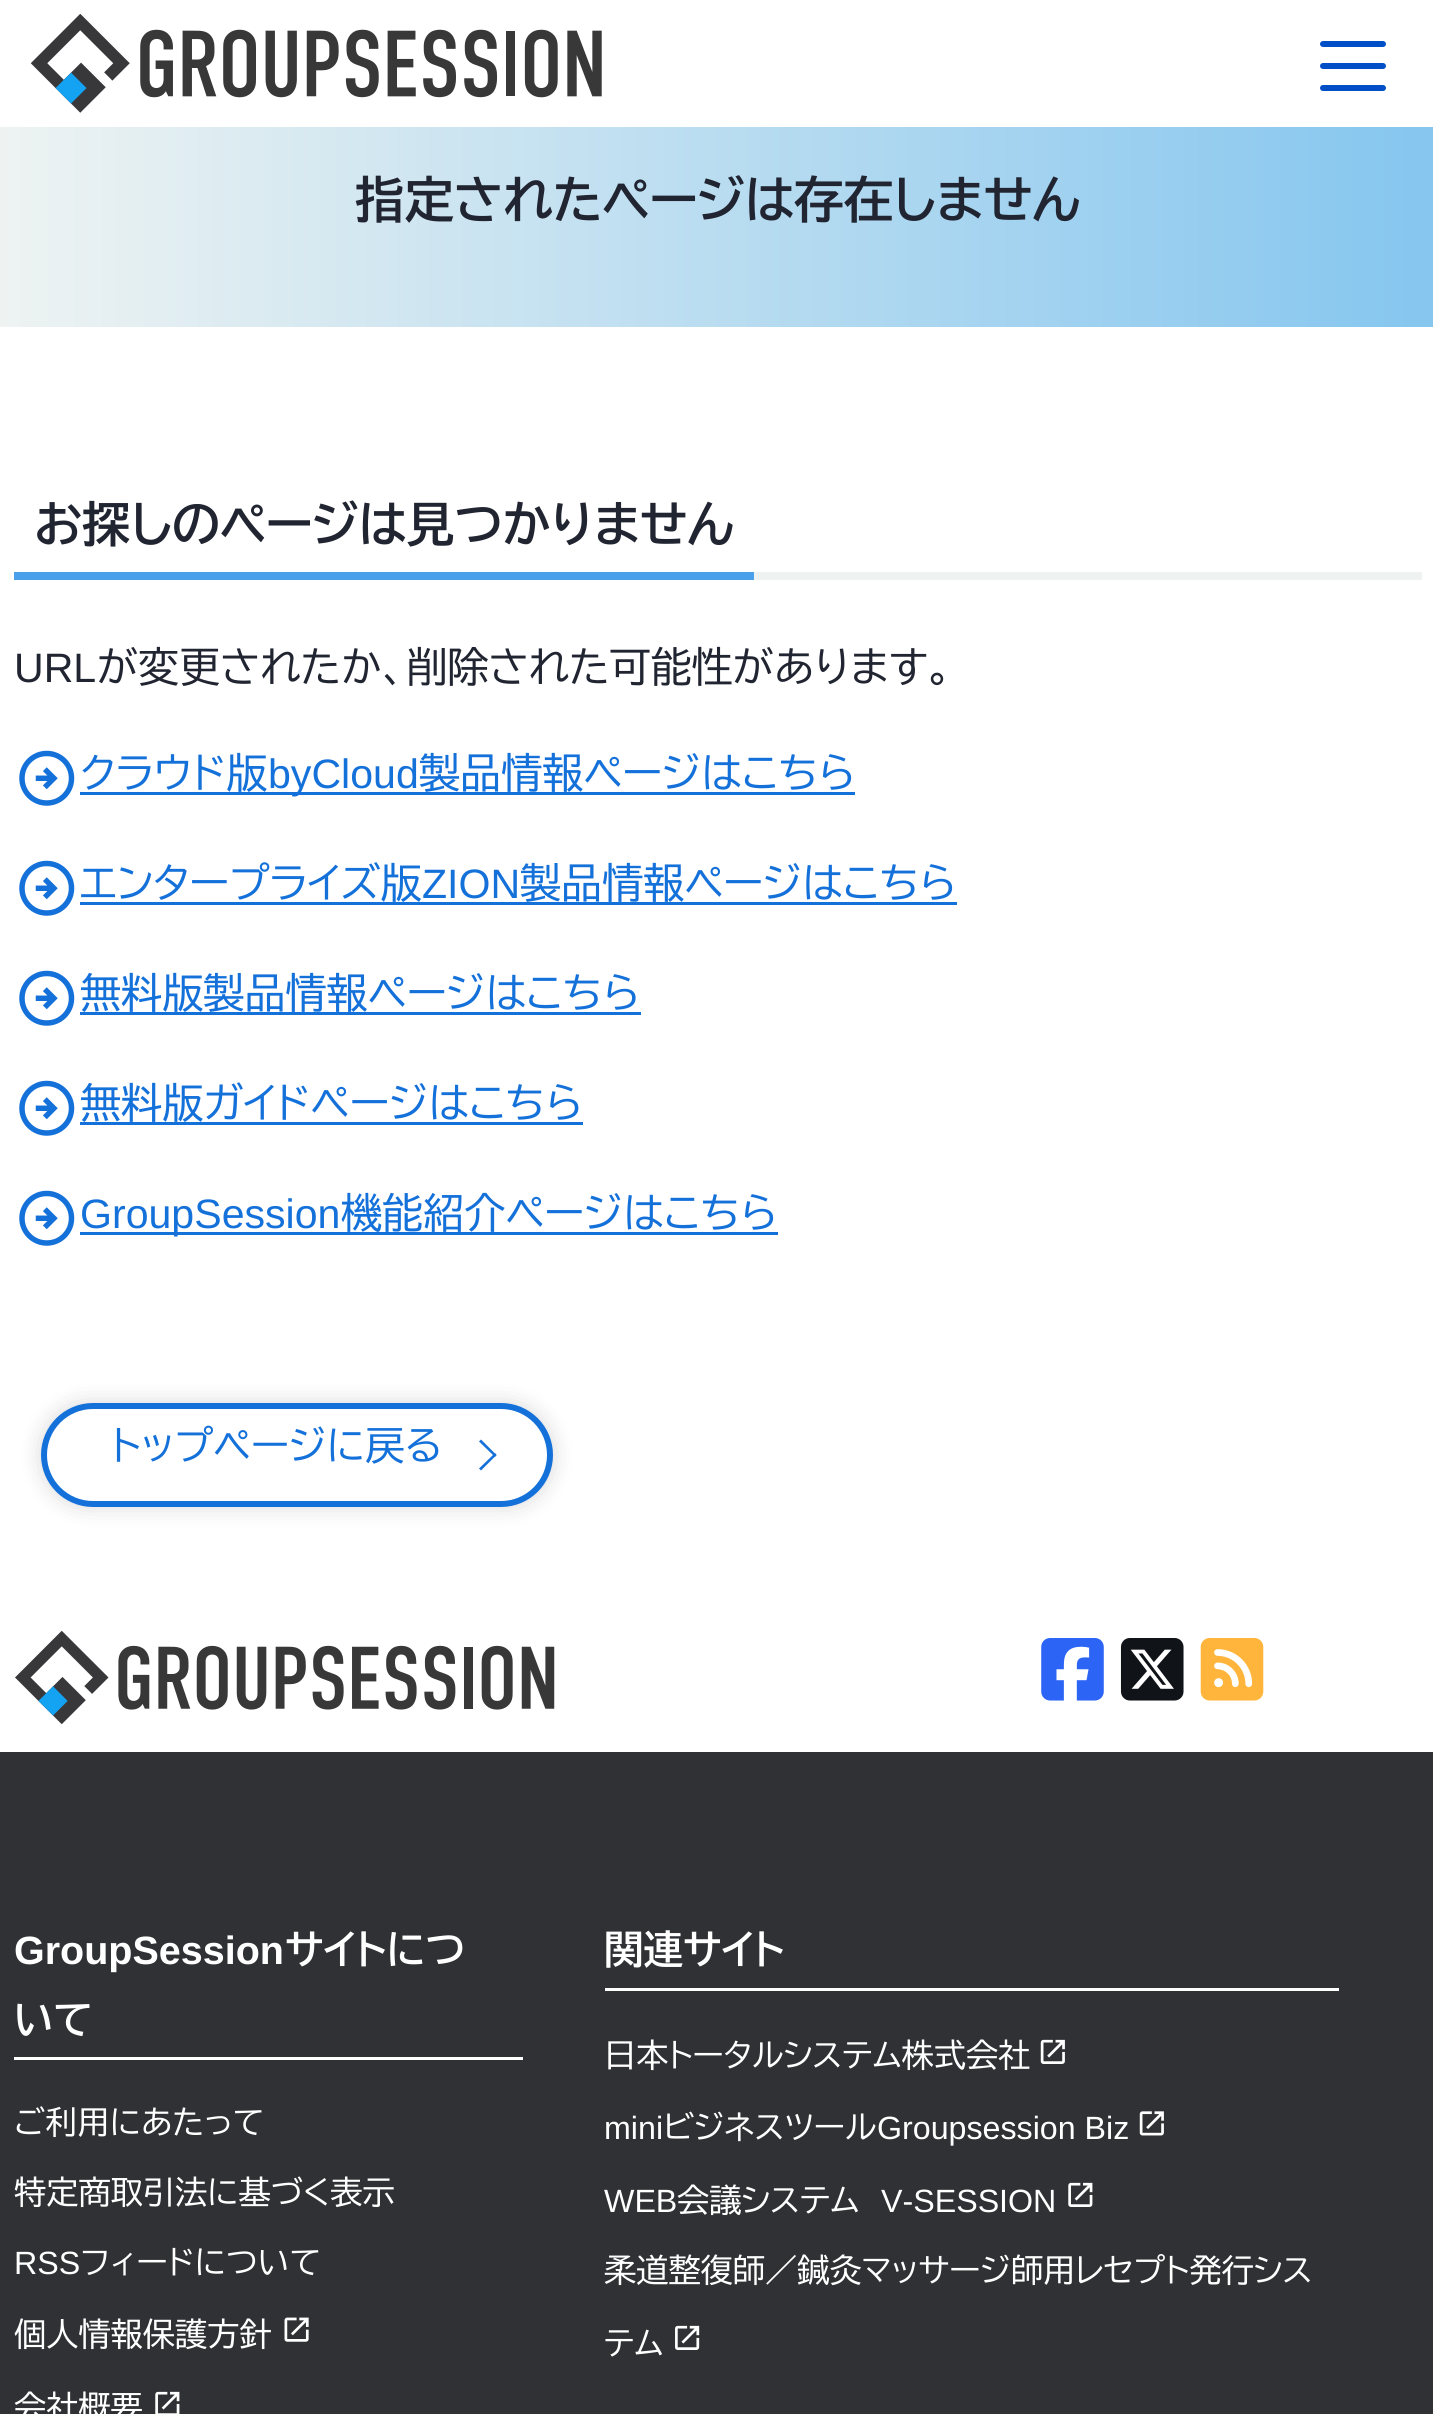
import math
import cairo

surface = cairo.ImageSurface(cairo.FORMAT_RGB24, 1433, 2414)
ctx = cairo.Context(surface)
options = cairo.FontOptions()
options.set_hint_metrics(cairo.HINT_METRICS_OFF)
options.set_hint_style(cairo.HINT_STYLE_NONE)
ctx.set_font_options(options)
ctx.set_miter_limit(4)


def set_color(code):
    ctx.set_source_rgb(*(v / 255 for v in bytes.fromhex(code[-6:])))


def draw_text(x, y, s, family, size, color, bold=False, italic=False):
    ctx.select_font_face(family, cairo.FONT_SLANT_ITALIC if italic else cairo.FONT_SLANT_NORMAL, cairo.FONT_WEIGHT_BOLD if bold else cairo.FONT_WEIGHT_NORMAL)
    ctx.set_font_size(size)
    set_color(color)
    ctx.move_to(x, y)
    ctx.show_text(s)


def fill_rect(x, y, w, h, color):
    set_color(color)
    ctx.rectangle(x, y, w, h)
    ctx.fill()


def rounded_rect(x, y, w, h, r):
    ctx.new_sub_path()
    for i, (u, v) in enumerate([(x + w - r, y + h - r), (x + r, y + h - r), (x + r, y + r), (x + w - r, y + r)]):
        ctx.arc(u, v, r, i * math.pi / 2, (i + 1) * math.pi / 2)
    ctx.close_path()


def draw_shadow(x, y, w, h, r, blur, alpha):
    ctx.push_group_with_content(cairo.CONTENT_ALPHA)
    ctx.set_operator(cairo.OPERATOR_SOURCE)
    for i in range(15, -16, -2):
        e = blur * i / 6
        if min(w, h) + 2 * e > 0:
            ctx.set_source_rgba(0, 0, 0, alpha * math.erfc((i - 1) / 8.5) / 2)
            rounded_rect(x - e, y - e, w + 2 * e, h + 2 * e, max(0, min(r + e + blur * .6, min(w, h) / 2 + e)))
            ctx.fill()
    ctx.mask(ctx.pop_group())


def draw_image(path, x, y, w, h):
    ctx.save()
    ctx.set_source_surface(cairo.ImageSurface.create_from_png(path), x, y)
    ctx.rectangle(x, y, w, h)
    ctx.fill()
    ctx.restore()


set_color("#ffffff")
ctx.paint()
draw_image("assets/img1.png", 30, 14, 572, 99)
set_color("#014fc7")
rounded_rect(1320, 63, 66, 6, 3)
ctx.fill()
rounded_rect(1320, 41, 66, 6, 3)
ctx.fill()
rounded_rect(1320, 85, 66, 6, 3)
ctx.fill()
gradient = cairo.LinearGradient(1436, 227, 0, 227)
gradient.add_color_stop_rgba(0, 0.522, 0.776, 0.937, 1)
gradient.add_color_stop_rgba(1, 0.933, 0.953, 0.949, 1)
ctx.set_source(gradient)
ctx.rectangle(0, 127, 1433, 200)
ctx.fill()
draw_text(355, 218, "指定されたページは存在しません", "BIZ UDPGothic", 49.5, "#212531", bold=True)
fill_rect(754, 572, 668, 8, "#eef3f2")
draw_text(34, 542, "お探しのページは見つかりません", "BIZ UDPGothic", 48.1, "#212531", bold=True)
fill_rect(14, 572, 740, 8, "#4aa0eb")
draw_text(14, 682, "URL", "Liberation Sans", 41.1, "#212531")
draw_text(97, 682, "が変更されたか、削除された可能性があります。", "BIZ UDPGothic", 41.1, "#212531")
draw_image("assets/img2.png", 19, 750, 56, 56)
fill_rect(80, 792, 775, 3, "#1571da")
draw_text(80, 788, "クラウド版", "BIZ UDPGothic", 41.1, "#1571da")
draw_text(268, 788, "byCloud", "Liberation Sans", 41.1, "#1571da")
draw_text(419, 788, "製品情報ページはこちら", "BIZ UDPGothic", 41.1, "#1571da")
draw_image("assets/img2.png", 19, 860, 56, 56)
fill_rect(80, 902, 877, 3, "#1571da")
draw_text(80, 898, "エンタープライズ版", "BIZ UDPGothic", 41.1, "#1571da")
draw_text(422, 898, "ZION", "Liberation Sans", 41.1, "#1571da")
draw_text(520, 898, "製品情報ページはこちら", "BIZ UDPGothic", 41.1, "#1571da")
draw_image("assets/img2.png", 19, 970, 56, 56)
fill_rect(80, 1012, 561, 3, "#1571da")
draw_text(80, 1008, "無料版製品情報ページはこちら", "BIZ UDPGothic", 41.1, "#1571da")
draw_image("assets/img2.png", 19, 1080, 56, 56)
fill_rect(80, 1122, 503, 3, "#1571da")
draw_text(80, 1118, "無料版ガイドページはこちら", "BIZ UDPGothic", 41.1, "#1571da")
draw_image("assets/img2.png", 19, 1190, 56, 56)
fill_rect(80, 1232, 698, 3, "#1571da")
draw_text(80, 1228, "GroupSession", "Liberation Sans", 41.1, "#1571da")
draw_text(341, 1228, "機能紹介ページはこちら", "BIZ UDPGothic", 41.1, "#1571da")
set_color("#000000")
draw_shadow(41, 1403, 512, 104, 52, 11, 0.15)
set_color("#ffffff")
rounded_rect(44, 1406, 506, 98, 49)
ctx.fill_preserve()
set_color("#1571da")
ctx.set_line_width(6)
ctx.stroke()
draw_text(111, 1460, "トップページに戻る", "BIZ UDPGothic", 39.5, "#1571da")
ctx.new_path()
ctx.move_to(481, 1439.5)
ctx.line_to(496.5, 1455)
ctx.line_to(495, 1457)
ctx.line_to(479, 1441.5)
ctx.close_path()
ctx.fill()
ctx.new_path()
ctx.move_to(495, 1453)
ctx.line_to(496.5, 1455)
ctx.line_to(481, 1470.5)
ctx.line_to(479, 1468.5)
ctx.close_path()
ctx.fill()
fill_rect(0, 1752, 1433, 662, "#303134")
draw_image("assets/img3.png", 15, 1631, 540, 93)
draw_image("assets/img4.png", 1041, 1638, 63, 63)
draw_image("assets/img5.png", 1120, 1638, 64, 63)
draw_image("assets/img6.png", 1200, 1638, 64, 63)
fill_rect(14, 2057, 509, 3, "#ffffff")
draw_text(14, 1964, "GroupSession", "Liberation Sans", 39.5, "#ffffff", bold=True)
draw_text(285, 1964, "サイトにつ", "BIZ UDPGothic", 39.5, "#ffffff", bold=True)
draw_text(14, 2034, "いて", "BIZ UDPGothic", 39.5, "#ffffff", bold=True)
draw_text(14, 2134, "ご利用にあたって", "BIZ UDPGothic", 32.2, "#ffffff")
draw_text(14, 2204, "特定商取引法に基づく表示", "BIZ UDPGothic", 32.2, "#ffffff")
draw_text(14, 2274, "RSS", "Liberation Sans", 32.2, "#ffffff")
draw_text(81, 2274, "フィードについて", "BIZ UDPGothic", 32.2, "#ffffff")
draw_text(14, 2346, "個人情報保護方針", "BIZ UDPGothic", 32.2, "#ffffff")
draw_image("assets/img7.png", 284, 2317, 25, 25)
draw_text(14, 2419, "会社概要", "BIZ UDPGothic", 32.2, "#ffffff")
draw_image("assets/img8.png", 155, 2391, 25, 23)
fill_rect(605, 1988, 734, 3, "#ffffff")
draw_text(604, 1964, "関連サイト", "BIZ UDPGothic", 39.5, "#ffffff", bold=True)
draw_text(604, 2067, "日本トータルシステム株式会社", "BIZ UDPGothic", 32.2, "#ffffff")
draw_image("assets/img9.png", 1040, 2039, 25, 25)
draw_text(604, 2139, "mini", "Liberation Sans", 32.2, "#ffffff")
draw_text(663, 2139, "ビジネスツール", "BIZ UDPGothic", 32.2, "#ffffff")
draw_text(877, 2139, "Groupsession Biz", "Liberation Sans", 32.2, "#ffffff")
draw_image("assets/img10.png", 1139, 2111, 25, 25)
draw_text(604, 2212, "WEB", "Liberation Sans", 32.2, "#ffffff")
draw_text(677, 2212, "会議システム", "BIZ UDPGothic", 32.2, "#ffffff")
draw_text(881, 2212, "V-SESSION", "Liberation Sans", 32.2, "#ffffff")
draw_image("assets/img11.png", 1068, 2182, 25, 25)
draw_text(604, 2282, "柔道整復師／鍼灸マッサージ師用レセプト発行シス", "BIZ UDPGothic", 32.2, "#ffffff")
draw_text(604, 2355, "テム", "BIZ UDPGothic", 32.2, "#ffffff")
draw_image("assets/img12.png", 675, 2325, 25, 25)
surface.write_to_png("output.png")
